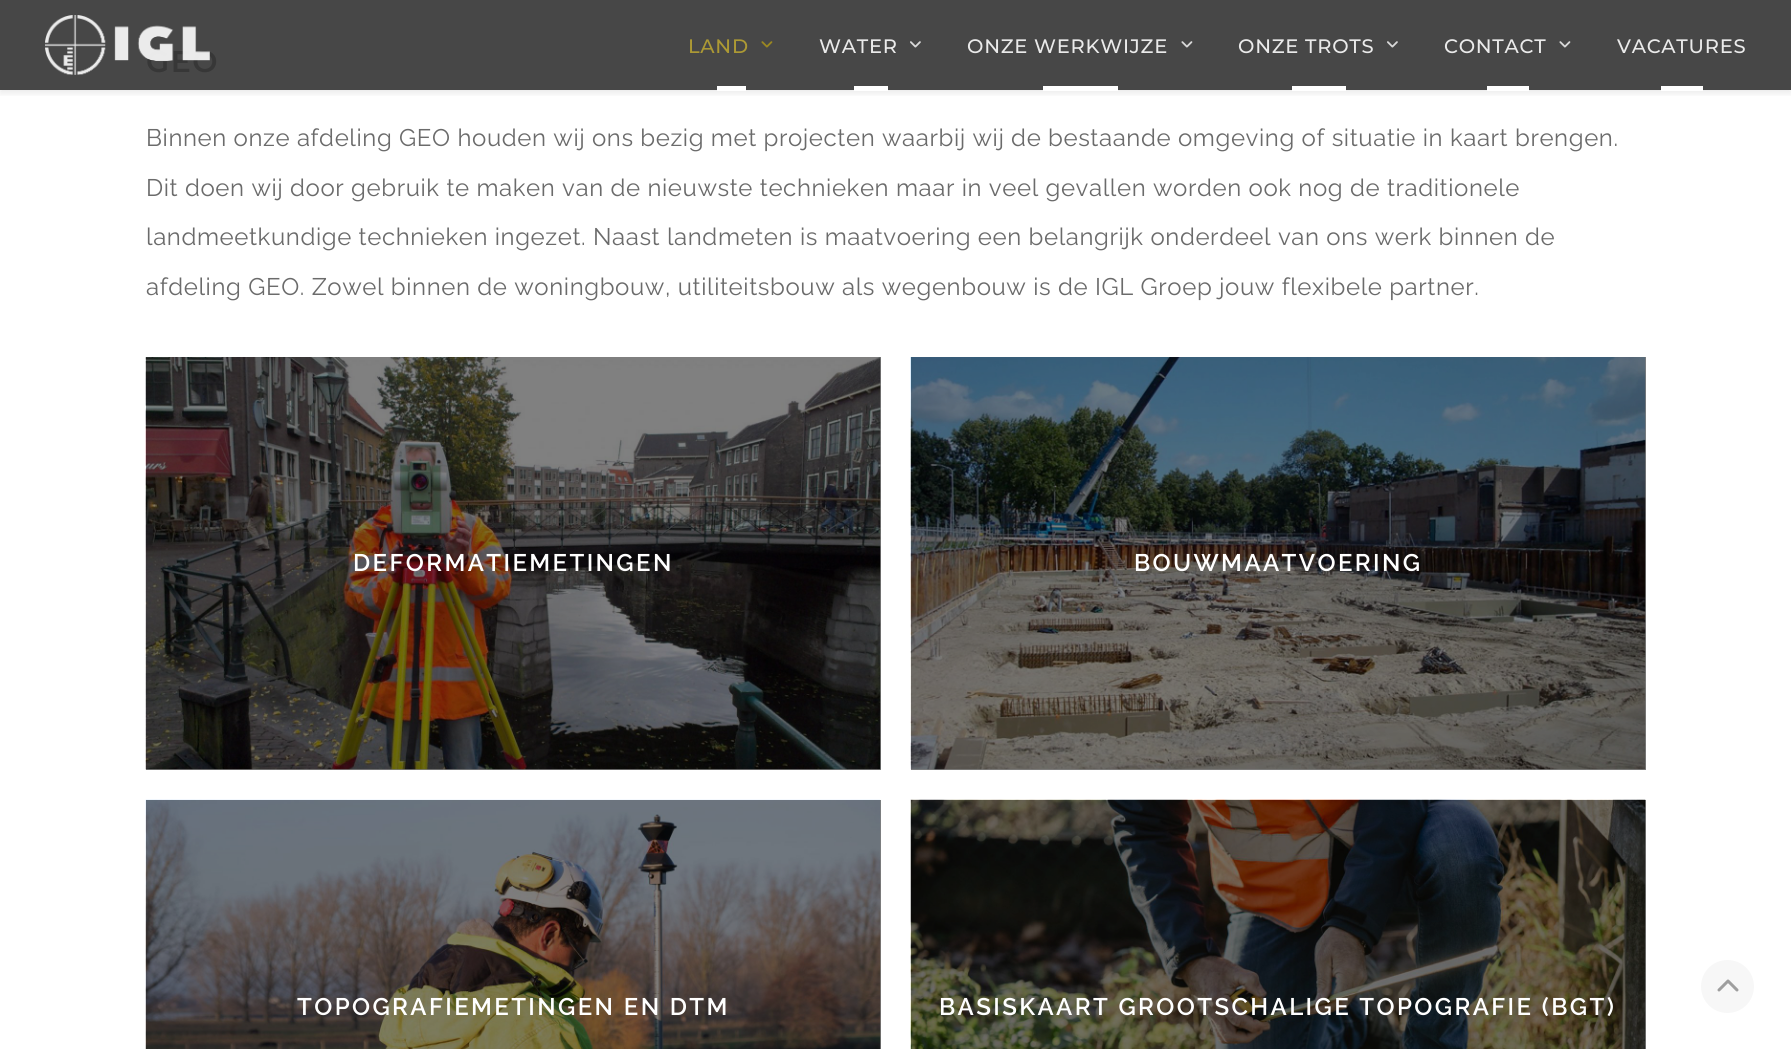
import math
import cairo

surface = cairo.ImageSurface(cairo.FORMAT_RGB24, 1791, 1049)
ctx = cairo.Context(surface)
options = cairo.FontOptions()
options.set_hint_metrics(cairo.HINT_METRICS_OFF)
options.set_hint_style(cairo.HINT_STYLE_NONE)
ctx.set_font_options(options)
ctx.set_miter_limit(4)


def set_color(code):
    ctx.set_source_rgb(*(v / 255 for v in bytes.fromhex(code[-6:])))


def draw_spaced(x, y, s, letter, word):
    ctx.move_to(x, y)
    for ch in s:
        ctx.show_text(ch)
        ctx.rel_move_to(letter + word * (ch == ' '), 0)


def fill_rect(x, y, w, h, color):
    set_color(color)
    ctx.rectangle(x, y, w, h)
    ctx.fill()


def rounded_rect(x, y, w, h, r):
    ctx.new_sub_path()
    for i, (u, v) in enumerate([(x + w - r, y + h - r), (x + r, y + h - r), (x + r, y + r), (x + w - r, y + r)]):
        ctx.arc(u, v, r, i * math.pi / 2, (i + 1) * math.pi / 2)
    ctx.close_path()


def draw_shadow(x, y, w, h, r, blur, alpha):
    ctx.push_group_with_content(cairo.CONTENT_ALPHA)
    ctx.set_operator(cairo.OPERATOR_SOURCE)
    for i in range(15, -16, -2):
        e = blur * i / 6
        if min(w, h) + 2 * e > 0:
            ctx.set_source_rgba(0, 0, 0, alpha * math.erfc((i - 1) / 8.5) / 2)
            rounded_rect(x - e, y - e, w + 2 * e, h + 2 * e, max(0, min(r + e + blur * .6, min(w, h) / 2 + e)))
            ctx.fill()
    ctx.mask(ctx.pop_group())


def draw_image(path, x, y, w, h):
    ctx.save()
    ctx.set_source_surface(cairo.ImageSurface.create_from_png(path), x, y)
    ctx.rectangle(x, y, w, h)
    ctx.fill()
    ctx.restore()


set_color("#ffffff")
ctx.paint()
fill_rect(0, 0, 1791, 90, "#474747")
fill_rect(1645, 800, 1, 249, "#808080")
fill_rect(880, 800, 1, 249, "#808080")
fill_rect(911, 357, 735, 413, "#808080")
fill_rect(146, 357, 735, 413, "#808080")
ctx.save()
ctx.rectangle(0, 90, 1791, 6)
ctx.clip()
set_color("#1a1a1a")
draw_shadow(0, 3, 1791, 90, 0, 4, 0.1)
ctx.restore()
ctx.select_font_face("Montserrat SemiBold")
ctx.set_font_size(30)
set_color("#373737")
draw_spaced(146, 72, "GEO", 1.5, 0)
draw_image("assets/img1.png", 45, 15, 165, 60)
ctx.select_font_face("Montserrat Medium")
ctx.set_font_size(19.5)
set_color("#ac9934")
draw_spaced(688, 53, "LAND", 0.75, 0)
draw_image("assets/img2.png", 761, 41, 12, 7)
fill_rect(717, 86, 29, 5, "#ffffff")
set_color("#eaeaea")
draw_spaced(819, 53, "WATER", 0.75, 0)
draw_image("assets/img3.png", 910, 41, 11, 7)
fill_rect(854, 86, 34, 5, "#ffffff")
set_color("#eaeaea")
draw_spaced(967, 53, "ONZE WERKWIJZE", 0.75, 0)
draw_image("assets/img4.png", 1181, 41, 12, 7)
fill_rect(1043, 86, 75, 5, "#ffffff")
set_color("#eaeaea")
draw_spaced(1238, 53, "ONZE TROTS", 0.75, 0)
draw_image("assets/img3.png", 1387, 41, 11, 7)
fill_rect(1292, 86, 54, 5, "#ffffff")
set_color("#eaeaea")
draw_spaced(1444, 53, "CONTACT", 0.75, 0)
draw_image("assets/img4.png", 1559, 41, 12, 7)
fill_rect(1487, 86, 42, 5, "#ffffff")
set_color("#eaeaea")
draw_spaced(1617, 53, "VACATURES", 0.75, 0)
fill_rect(1661, 86, 42, 5, "#ffffff")
ctx.select_font_face("Raleway")
ctx.set_font_size(24)
set_color("#6b6b6b")
draw_spaced(146, 146, "Binnen onze afdeling GEO houden wij ons bezig met projecten waarbij wij de bestaande omgeving of situatie in kaart brengen.", 0.6, 0)
draw_spaced(146, 196, "Dit doen wij door gebruik te maken van de nieuwste technieken maar in veel gevallen worden ook nog de traditionele", 0.6, 0)
draw_spaced(146, 245, "landmeetkundige technieken ingezet. Naast landmeten is maatvoering een belangrijk onderdeel van ons werk binnen de", 0.6, 0)
draw_spaced(146, 295, "afdeling GEO. Zowel binnen de woningbouw, utiliteitsbouw als wegenbouw is de IGL Groep jouw flexibele partner.", 0.6, 0)
draw_image("assets/img5.png", 145, 357, 736, 413)
ctx.select_font_face("Raleway SemiBold")
set_color("#ffffff")
draw_spaced(353, 571, "DEFORMATIEMETINGEN", 2.4, 0)
draw_image("assets/img6.png", 910, 357, 736, 413)
draw_spaced(1134, 571, "BOUWMAATVOERING", 2.4, 0)
draw_image("assets/img7.png", 145, 799, 736, 250)
draw_spaced(297, 1015, "TOPOGRAFIEMETINGEN EN DTM", 2.4, 0)
draw_image("assets/img8.png", 910, 799, 736, 250)
draw_spaced(939, 1015, "BASISKAART GROOTSCHALIGE TOPOGRAFIE (BGT)", 2.4, 0)
set_color("#f7f7f7")
ctx.new_path()
ctx.arc(1727.5, 986.5, 26.5, 0, 2 * math.pi)
ctx.fill()
draw_image("assets/img9.png", 1717, 979, 22, 13)
surface.write_to_png("output.png")
